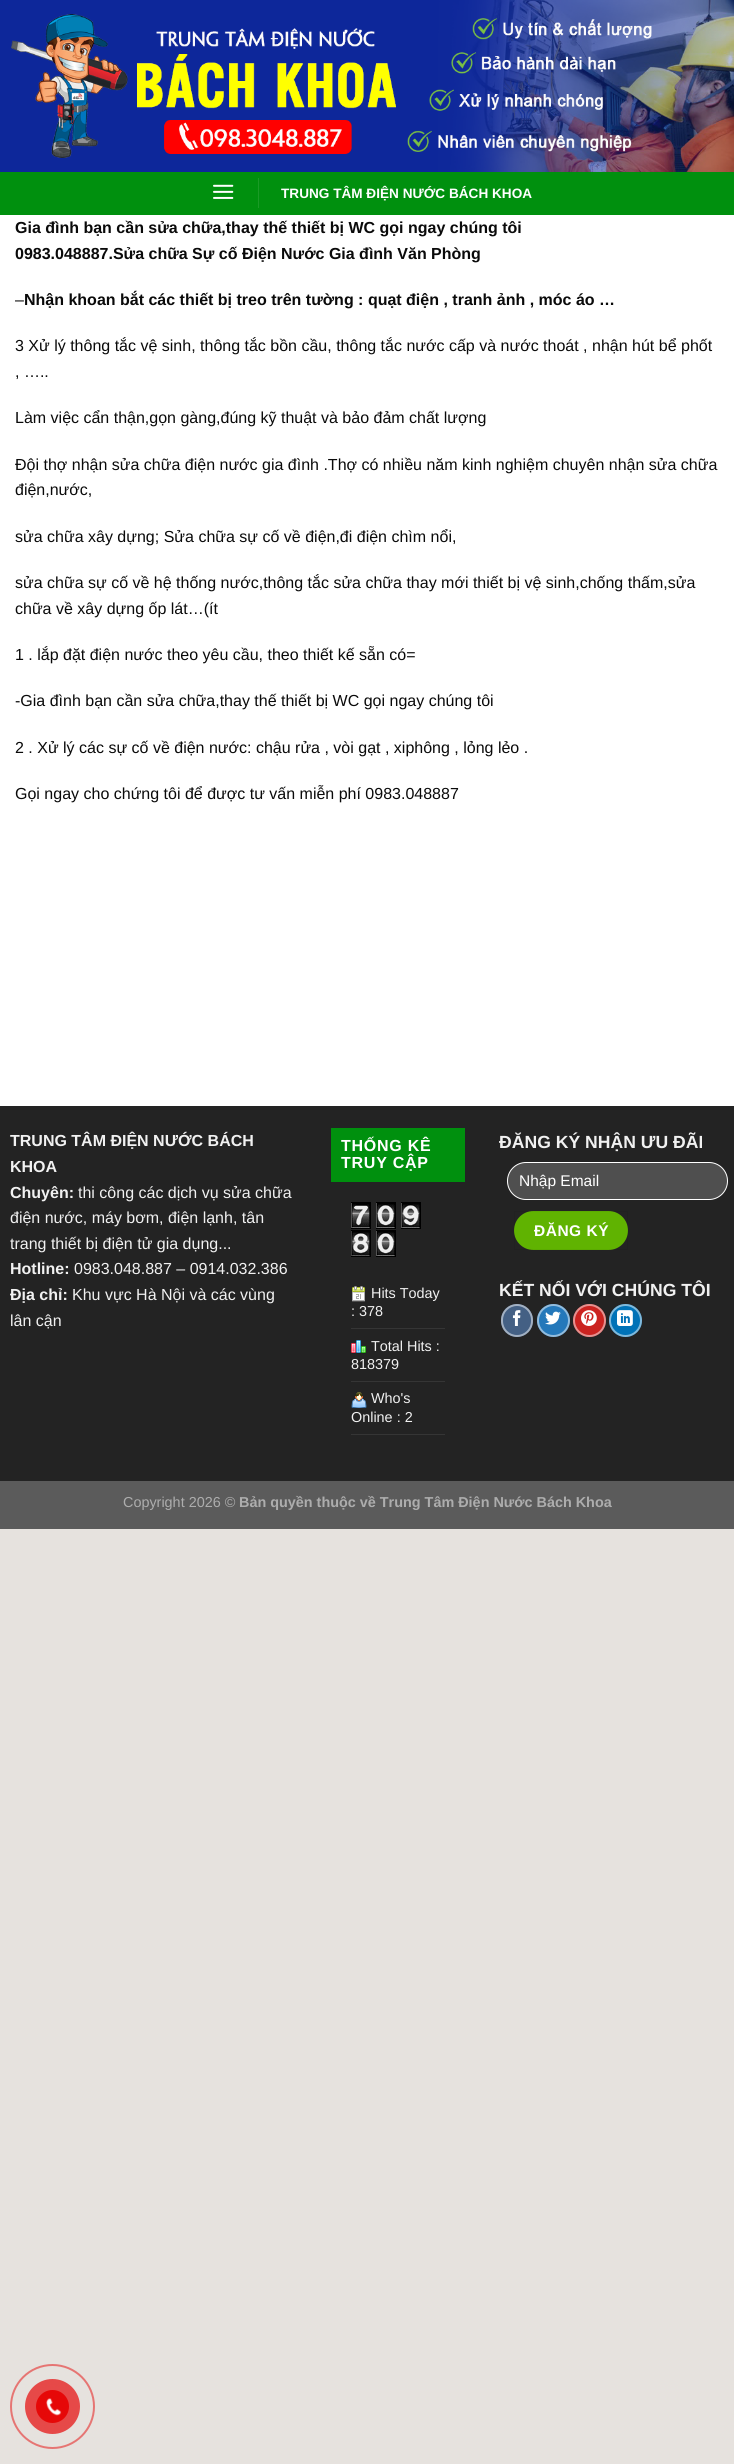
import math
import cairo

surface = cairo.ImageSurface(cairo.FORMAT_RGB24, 734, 2464)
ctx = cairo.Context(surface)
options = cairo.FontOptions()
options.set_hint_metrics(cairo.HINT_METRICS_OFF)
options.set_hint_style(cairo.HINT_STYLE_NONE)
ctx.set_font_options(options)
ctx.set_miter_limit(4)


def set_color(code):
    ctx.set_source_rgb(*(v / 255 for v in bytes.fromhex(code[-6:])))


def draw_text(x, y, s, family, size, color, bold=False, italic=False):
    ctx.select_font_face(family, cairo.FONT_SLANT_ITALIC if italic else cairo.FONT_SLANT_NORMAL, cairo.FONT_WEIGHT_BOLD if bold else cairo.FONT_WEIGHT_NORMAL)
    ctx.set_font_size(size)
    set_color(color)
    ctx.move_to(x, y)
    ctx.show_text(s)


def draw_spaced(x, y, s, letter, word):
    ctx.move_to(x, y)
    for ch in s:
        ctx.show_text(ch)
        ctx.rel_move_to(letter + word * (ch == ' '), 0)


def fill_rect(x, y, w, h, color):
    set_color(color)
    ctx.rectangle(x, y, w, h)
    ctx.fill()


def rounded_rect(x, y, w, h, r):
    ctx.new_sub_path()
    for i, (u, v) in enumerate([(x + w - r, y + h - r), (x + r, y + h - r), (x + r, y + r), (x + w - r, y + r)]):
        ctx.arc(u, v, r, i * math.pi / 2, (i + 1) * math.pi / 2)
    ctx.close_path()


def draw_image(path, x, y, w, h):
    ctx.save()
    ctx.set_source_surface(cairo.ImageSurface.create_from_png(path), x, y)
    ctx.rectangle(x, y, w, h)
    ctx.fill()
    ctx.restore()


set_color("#e6e2de")
ctx.paint()
fill_rect(0, 215, 734, 891, "#ffffff")
draw_image("assets/img1.png", 0, 0, 734, 172)
fill_rect(0, 172, 734, 43, "#00900e")
draw_image("assets/img2.png", 213, 184, 21, 15)
fill_rect(258, 178, 1, 30, "#1a9b26")
draw_text(281, 198, "TRUNG TÂM ĐIỆN NƯỚC BÁCH KHOA", "Liberation Sans", 13.6, "#ffffff", bold=True)
draw_text(15, 233, "Gia đình bạn cần sửa chữa,thay thế thiết bị WC gọi ngay chúng tôi", "Liberation Sans", 16, "#0a0a0a", bold=True)
draw_text(15, 259, "0983.048887.Sửa chữa Sự cố Điện Nước Gia đình Văn Phòng", "Liberation Sans", 16, "#0a0a0a", bold=True)
draw_text(15, 305, "–", "Liberation Sans", 16, "#0a0a0a")
draw_text(24, 305, "Nhận khoan bắt các thiết bị treo trên tường : quạt điện , tranh ảnh , móc áo …", "Liberation Sans", 16, "#0a0a0a", bold=True)
draw_text(15, 351, "3 Xử lý thông tắc vệ sinh, thông tắc bồn cầu, thông tắc nước cấp và nước thoát , nhận hút bể phốt", "Liberation Sans", 16, "#0a0a0a")
draw_text(15, 377, ", …..", "Liberation Sans", 16, "#0a0a0a")
draw_text(15, 423, "Làm việc cẩn thận,gọn gàng,đúng kỹ thuật và bảo đảm chất lượng", "Liberation Sans", 16, "#0a0a0a")
draw_text(15, 470, "Đội thợ nhận sửa chữa điện nước gia đình .Thợ có nhiều năm kinh nghiệm chuyên nhận sửa chữa", "Liberation Sans", 16, "#0a0a0a")
draw_text(15, 495, "điện,nước,", "Liberation Sans", 16, "#0a0a0a")
draw_text(15, 542, "sửa chữa xây dựng; Sửa chữa sự cố về điện,đi điện chìm nổi,", "Liberation Sans", 16, "#0a0a0a")
draw_text(15, 588, "sửa chữa sự cố về hệ thống nước,thông tắc sửa chữa thay mới thiết bị vệ sinh,chống thấm,sửa", "Liberation Sans", 16, "#0a0a0a")
draw_text(15, 614, "chữa về xây dựng ốp lát…(ít", "Liberation Sans", 16, "#0a0a0a")
draw_text(15, 660, "1 . lắp đặt điện nước theo yêu cầu, theo thiết kế sẵn có=", "Liberation Sans", 16, "#0a0a0a")
draw_text(15, 706, "-Gia đình bạn cần sửa chữa,thay thế thiết bị WC gọi ngay chúng tôi", "Liberation Sans", 16, "#0a0a0a")
draw_text(15, 753, "2 . Xử lý các sự cố về điện nước: chậu rửa , vòi gạt , xiphông , lỏng lẻo .", "Liberation Sans", 16, "#0a0a0a")
draw_text(15, 799, "Gọi ngay cho chứng tôi để được tư vấn miễn phí 0983.048887", "Liberation Sans", 16, "#0a0a0a")
fill_rect(0, 1106, 734, 375, "#232323")
draw_text(10, 1146, "TRUNG TÂM ĐIỆN NƯỚC BÁCH", "Liberation Sans", 16, "#f1f1f1", bold=True)
draw_text(10, 1172, "KHOA", "Liberation Sans", 16, "#f1f1f1", bold=True)
draw_text(10, 1198, "Chuyên:", "Liberation Sans", 16, "#f1f1f1", bold=True)
draw_text(78, 1198, "thi công các dịch vụ sửa chữa", "Liberation Sans", 16, "#f1f1f1")
draw_text(10, 1223, "điện nước, máy bơm, điện lạnh, tân", "Liberation Sans", 16, "#f1f1f1")
draw_text(10, 1249, "trang thiết bị điện tử gia dụng...", "Liberation Sans", 16, "#f1f1f1")
draw_text(10, 1274, "Hotline:", "Liberation Sans", 16, "#f1f1f1", bold=True)
draw_text(74, 1274, "0983.048.887 – 0914.032.386", "Liberation Sans", 16, "#f1f1f1")
draw_text(10, 1300, "Địa chỉ:", "Liberation Sans", 16, "#f1f1f1", bold=True)
draw_text(72, 1300, "Khu vực Hà Nội và các vùng", "Liberation Sans", 16, "#f1f1f1")
draw_text(10, 1326, "lân cận", "Liberation Sans", 16, "#f1f1f1")
fill_rect(331, 1128, 134, 54, "#00900e")
ctx.select_font_face("Liberation Sans", cairo.FONT_SLANT_NORMAL, cairo.FONT_WEIGHT_BOLD)
set_color("#ffffff")
draw_spaced(341, 1151, "THỐNG KÊ", 0.75, 0)
draw_spaced(341, 1168, "TRUY CẬP", 0.75, 0)
draw_image("assets/img3.png", 351, 1202, 20, 27)
draw_image("assets/img4.png", 376, 1202, 20, 27)
draw_image("assets/img5.png", 401, 1202, 20, 27)
draw_image("assets/img6.png", 351, 1230, 20, 27)
draw_image("assets/img4.png", 376, 1230, 20, 27)
fill_rect(351, 1328, 94, 1, "#353535")
draw_image("assets/img7.png", 352, 1286, 13, 16)
draw_text(371, 1298, "Hits Today", "Liberation Sans", 14.4, "#f1f1f1")
draw_text(351, 1316, ": 378", "Liberation Sans", 14.4, "#f1f1f1")
fill_rect(351, 1381, 94, 1, "#353535")
draw_image("assets/img8.png", 351, 1340, 15, 14)
draw_text(371, 1351, "Total Hits :", "Liberation Sans", 14.4, "#f1f1f1")
draw_text(351, 1369, "818379", "Liberation Sans", 14.4, "#f1f1f1")
fill_rect(351, 1434, 94, 1, "#353535")
draw_image("assets/img9.png", 351, 1392, 16, 16)
draw_text(371, 1403, "Who's", "Liberation Sans", 14.4, "#f1f1f1")
draw_text(351, 1422, "Online : 2", "Liberation Sans", 14.4, "#f1f1f1")
draw_text(499, 1148, "ĐĂNG KÝ NHẬN ƯU ĐÃI", "Liberation Sans", 17.6, "#f1f1f1", bold=True)
set_color("#4f4f4f")
rounded_rect(507.5, 1162.5, 220, 37, 18.5)
ctx.fill_preserve()
set_color("#ffffff")
ctx.set_line_width(1)
ctx.stroke()
draw_text(519, 1186, "Nhập Email", "Liberation Sans", 15.5, "#ffffff")
set_color("#60b301")
rounded_rect(514, 1211, 114, 39, 19.5)
ctx.fill()
ctx.rectangle(514.5, 1211.5, 113, 38)
ctx.set_source_rgba(0, 0, 0, 0.05)
ctx.stroke()
ctx.select_font_face("Liberation Sans", cairo.FONT_SLANT_NORMAL, cairo.FONT_WEIGHT_BOLD)
set_color("#ffffff")
draw_spaced(534, 1236, "ĐĂNG KÝ", 0.5, 0)
draw_text(499, 1296, "KẾT NỐI VỚI CHÚNG TÔI", "Liberation Sans", 17.6, "#f1f1f1", bold=True)
set_color("#446084")
rounded_rect(501, 1304, 32, 33, 16)
ctx.fill()
rounded_rect(502, 1305, 30, 31, 15)
ctx.set_source_rgba(1, 1, 1, 0.5)
ctx.set_line_width(2)
ctx.stroke()
draw_image("assets/img10.png", 512, 1310, 9, 16)
set_color("#2478ba")
ctx.arc(553.5, 1320.5, 16.5, 0, 2 * math.pi)
ctx.fill()
ctx.arc(553.5, 1320.5, 15.5, 0, 2 * math.pi)
ctx.set_source_rgba(1, 1, 1, 0.5)
ctx.stroke()
draw_image("assets/img11.png", 545, 1311, 16, 14)
set_color("#cb2320")
ctx.arc(589.5, 1320.5, 16.5, 0, 2 * math.pi)
ctx.fill()
ctx.arc(589.5, 1320.5, 15.5, 0, 2 * math.pi)
ctx.set_source_rgba(1, 1, 1, 0.5)
ctx.stroke()
draw_image("assets/img12.png", 581, 1310, 16, 16)
set_color("#0072b7")
ctx.arc(625.5, 1320.5, 16.5, 0, 2 * math.pi)
ctx.fill()
ctx.arc(625.5, 1320.5, 15.5, 0, 2 * math.pi)
ctx.set_source_rgba(1, 1, 1, 0.5)
ctx.stroke()
draw_image("assets/img13.png", 617, 1310, 16, 16)
fill_rect(0, 1481, 734, 48, "#5b5b5b")
draw_text(123, 1507, "Copyright 2026 ©", "Liberation Sans", 14.4, "#adadad")
draw_text(239, 1507, "Bản quyền thuộc về Trung Tâm Điện Nước Bách Khoa", "Liberation Sans", 14.4, "#adadad", bold=True)
ctx.new_path()
ctx.arc(52.5, 2406.5, 41.5, 0, 2 * math.pi)
set_color("#e67573")
ctx.stroke()
set_color("#e64948")
ctx.arc(52.5, 2406.5, 27.5, 0, 2 * math.pi)
ctx.fill()
set_color("#e60808")
ctx.arc(52.5, 2406.5, 16.5, 0, 2 * math.pi)
ctx.fill()
draw_image("assets/img14.png", 46, 2398, 16, 18)
surface.write_to_png("output.png")
